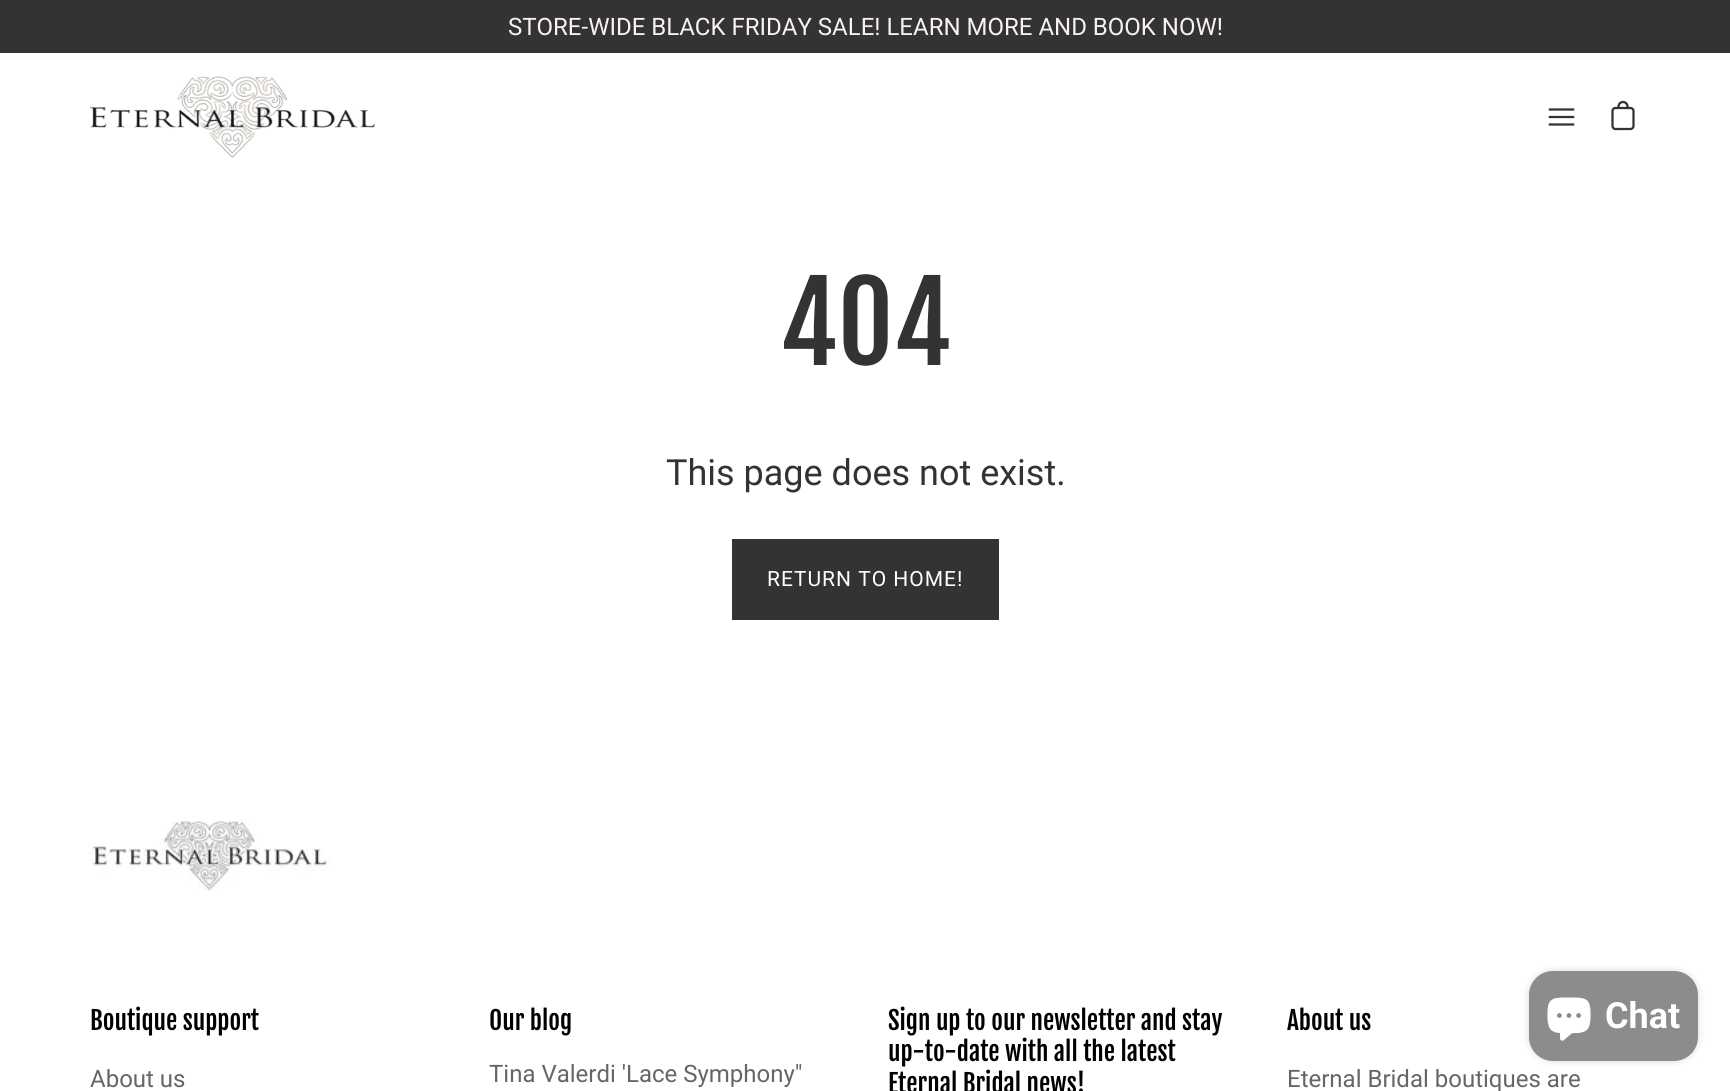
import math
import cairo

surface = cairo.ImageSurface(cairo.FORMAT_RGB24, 1730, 1091)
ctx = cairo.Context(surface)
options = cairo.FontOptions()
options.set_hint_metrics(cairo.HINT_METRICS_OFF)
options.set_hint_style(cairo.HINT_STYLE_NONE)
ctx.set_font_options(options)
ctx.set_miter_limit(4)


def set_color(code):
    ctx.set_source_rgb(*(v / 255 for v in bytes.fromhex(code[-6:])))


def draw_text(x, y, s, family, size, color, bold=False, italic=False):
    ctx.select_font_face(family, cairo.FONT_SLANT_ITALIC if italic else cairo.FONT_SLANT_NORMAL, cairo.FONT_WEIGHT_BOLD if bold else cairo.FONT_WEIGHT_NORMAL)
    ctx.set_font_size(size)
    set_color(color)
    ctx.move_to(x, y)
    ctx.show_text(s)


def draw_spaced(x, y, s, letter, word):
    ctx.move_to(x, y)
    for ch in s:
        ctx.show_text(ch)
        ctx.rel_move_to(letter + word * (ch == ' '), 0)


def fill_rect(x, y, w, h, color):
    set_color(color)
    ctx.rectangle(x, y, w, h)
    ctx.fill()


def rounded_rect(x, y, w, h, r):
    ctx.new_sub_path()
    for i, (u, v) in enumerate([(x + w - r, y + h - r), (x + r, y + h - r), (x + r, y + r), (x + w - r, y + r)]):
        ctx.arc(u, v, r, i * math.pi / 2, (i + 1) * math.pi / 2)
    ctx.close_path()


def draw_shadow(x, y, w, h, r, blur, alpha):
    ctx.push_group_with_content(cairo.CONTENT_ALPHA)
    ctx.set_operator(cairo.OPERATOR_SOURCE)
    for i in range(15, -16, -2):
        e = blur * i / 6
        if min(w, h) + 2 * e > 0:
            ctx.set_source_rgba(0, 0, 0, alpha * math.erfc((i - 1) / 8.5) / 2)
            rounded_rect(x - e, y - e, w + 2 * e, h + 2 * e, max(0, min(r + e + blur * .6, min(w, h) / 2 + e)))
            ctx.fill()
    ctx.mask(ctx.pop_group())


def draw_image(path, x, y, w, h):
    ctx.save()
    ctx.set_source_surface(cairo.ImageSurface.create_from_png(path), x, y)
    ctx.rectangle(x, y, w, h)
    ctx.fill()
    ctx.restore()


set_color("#ffffff")
ctx.paint()
fill_rect(0, 0, 1730, 53, "#333333")
draw_text(508, 35, "STORE-WIDE BLACK FRIDAY SALE! LEARN MORE AND BOOK NOW!", "Roboto", 24, "#faf2f2")
draw_image("assets/img1.png", 90, 76, 285, 82)
draw_image("assets/img2.png", 1548, 108, 27, 18)
draw_image("assets/img3.png", 1611, 100, 24, 31)
draw_text(780, 365, "404", "Fjalla One", 108, "#333333")
draw_text(666, 485, "This page does not exist.", "Roboto", 36, "#333333")
fill_rect(732, 539, 267, 81, "#333333")
ctx.set_font_size(21)
set_color("#ffffff")
draw_spaced(767, 586, "RETURN TO HOME!", 1, 0)
draw_image("assets/img4.png", 90, 821, 240, 70)
draw_text(90, 1030, "Boutique support", "Fjalla One", 25.25, "#000000")
draw_text(90, 1087, "About us", "Roboto", 24, "#666666")
draw_text(489, 1030, "Our blog", "Fjalla One", 25.25, "#000000")
draw_text(489, 1082, "Tina Valerdi 'Lace Symphony\"", "Roboto", 24, "#666666")
draw_text(888, 1030, "Sign up to our newsletter and stay", "Fjalla One", 25.25, "#000000")
draw_text(888, 1061, "up-to-date with all the latest", "Fjalla One", 25.25, "#000000")
draw_text(888, 1093, "Eternal Bridal news!", "Fjalla One", 25.25, "#000000")
draw_text(1287, 1030, "About us", "Fjalla One", 25.25, "#000000")
draw_text(1287, 1087, "Eternal Bridal boutiques are", "Roboto", 24, "#666666")
set_color("#000000")
draw_shadow(1529, 971, 169, 90, 24, 4, 0.15)
set_color("#8d8c8c")
rounded_rect(1529, 971, 169, 90, 24)
ctx.fill()
draw_image("assets/img5.png", 1547, 997, 44, 44)
draw_text(1605, 1028, "Chat", "Roboto", 36, "#ffffff", bold=True)
surface.write_to_png("output.png")
